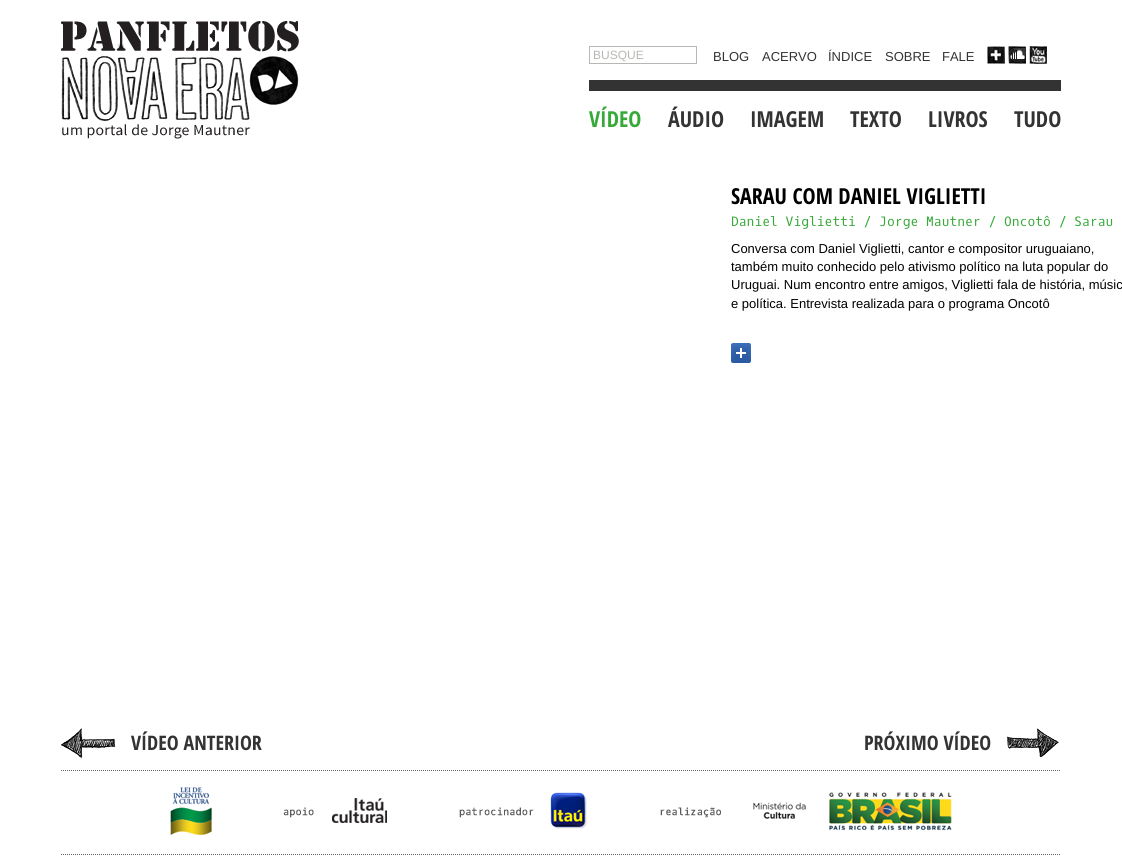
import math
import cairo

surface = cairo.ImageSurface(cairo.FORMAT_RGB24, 1122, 858)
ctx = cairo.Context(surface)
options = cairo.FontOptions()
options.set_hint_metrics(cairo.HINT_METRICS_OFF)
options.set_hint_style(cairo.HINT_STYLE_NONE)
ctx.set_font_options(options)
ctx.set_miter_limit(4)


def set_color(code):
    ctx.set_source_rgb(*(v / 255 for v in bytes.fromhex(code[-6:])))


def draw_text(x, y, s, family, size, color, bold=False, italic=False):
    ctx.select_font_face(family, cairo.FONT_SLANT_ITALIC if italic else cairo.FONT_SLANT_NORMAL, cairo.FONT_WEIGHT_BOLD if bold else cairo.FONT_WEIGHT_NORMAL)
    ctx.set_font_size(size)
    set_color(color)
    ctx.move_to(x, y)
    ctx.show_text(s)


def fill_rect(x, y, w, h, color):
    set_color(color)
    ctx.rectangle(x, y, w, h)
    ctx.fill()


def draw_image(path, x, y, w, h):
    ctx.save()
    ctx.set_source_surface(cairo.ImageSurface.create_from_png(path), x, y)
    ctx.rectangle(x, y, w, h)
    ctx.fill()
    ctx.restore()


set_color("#ffffff")
ctx.paint()
draw_image("assets/img1.png", 61, 21, 238, 118)
ctx.rectangle(589.5, 46.5, 107, 17)
set_color("#b7b8b3")
ctx.set_line_width(1)
ctx.stroke()
draw_text(593, 59, "BUSQUE", "Liberation Sans", 12, "#b7b8b3")
draw_text(713, 61, "BLOG", "Liberation Sans", 13, "#333333")
draw_text(762, 61, "ACERVO", "Liberation Sans", 13, "#333333")
draw_text(828, 61, "ÍNDICE", "Liberation Sans", 13, "#333333")
draw_text(885, 61, "SOBRE", "Liberation Sans", 13, "#333333")
draw_text(942, 61, "FALE", "Liberation Sans", 13, "#333333")
draw_image("assets/img2.png", 987, 46, 18, 18)
draw_image("assets/img3.png", 1008, 46, 18, 18)
draw_image("assets/img4.png", 1029, 46, 18, 18)
fill_rect(589, 80, 472, 11, "#333333")
draw_text(589, 127, "VÍDEO", "Open Sans Condensed", 22, "#36a938", bold=True)
draw_text(668, 127, "ÁUDIO", "Open Sans Condensed", 22, "#333333", bold=True)
draw_text(750, 127, "IMAGEM", "Open Sans Condensed", 22, "#333333", bold=True)
draw_text(850, 127, "TEXTO", "Open Sans Condensed", 22, "#333333", bold=True)
draw_text(928, 127, "LIVROS", "Open Sans Condensed", 22, "#333333", bold=True)
draw_text(1014, 127, "TUDO", "Open Sans Condensed", 22, "#333333", bold=True)
draw_text(731, 204, "SARAU COM DANIEL VIGLIETTI", "Open Sans Condensed", 22, "#000000", bold=True)
draw_text(731, 226, "Daniel Viglietti / Jorge Mautner / Oncotô / Sarau", "Oxygen Mono", 13, "#36a938")
draw_text(731, 253, "Conversa com Daniel Viglietti, cantor e compositor uruguaiano,", "Liberation Sans", 13, "#000000")
draw_text(731, 271, "também muito conhecido pelo ativismo político na luta popular do", "Liberation Sans", 13, "#000000")
draw_text(731, 289, "Uruguai. Num encontro entre amigos, Viglietti fala de história, músic", "Liberation Sans", 13, "#000000")
draw_text(731, 308, "e política. Entrevista realizada para o programa Oncotô", "Liberation Sans", 13, "#000000")
draw_image("assets/img5.png", 731, 343, 20, 20)
draw_image("assets/img6.png", 61, 728, 55, 30)
draw_text(131, 750, "VÍDEO ANTERIOR", "Open Sans Condensed", 20, "#333333", bold=True)
draw_image("assets/img7.png", 1007, 728, 52, 30)
draw_text(864, 750, "PRÓXIMO VÍDEO", "Open Sans Condensed", 20, "#333333", bold=True)
ctx.new_path()
ctx.move_to(61, 770.5)
ctx.line_to(1061, 770.5)
set_color("#666666")
ctx.set_dash([1, 1])
ctx.stroke()
ctx.new_path()
ctx.move_to(61, 854.5)
ctx.line_to(1061, 854.5)
ctx.stroke()
draw_image("assets/img8.png", 170, 787, 42, 48)
draw_image("assets/img9.png", 283, 798, 104, 25)
draw_image("assets/img10.png", 459, 792, 128, 37)
draw_image("assets/img11.png", 660, 792, 292, 39)
surface.write_to_png("output.png")
